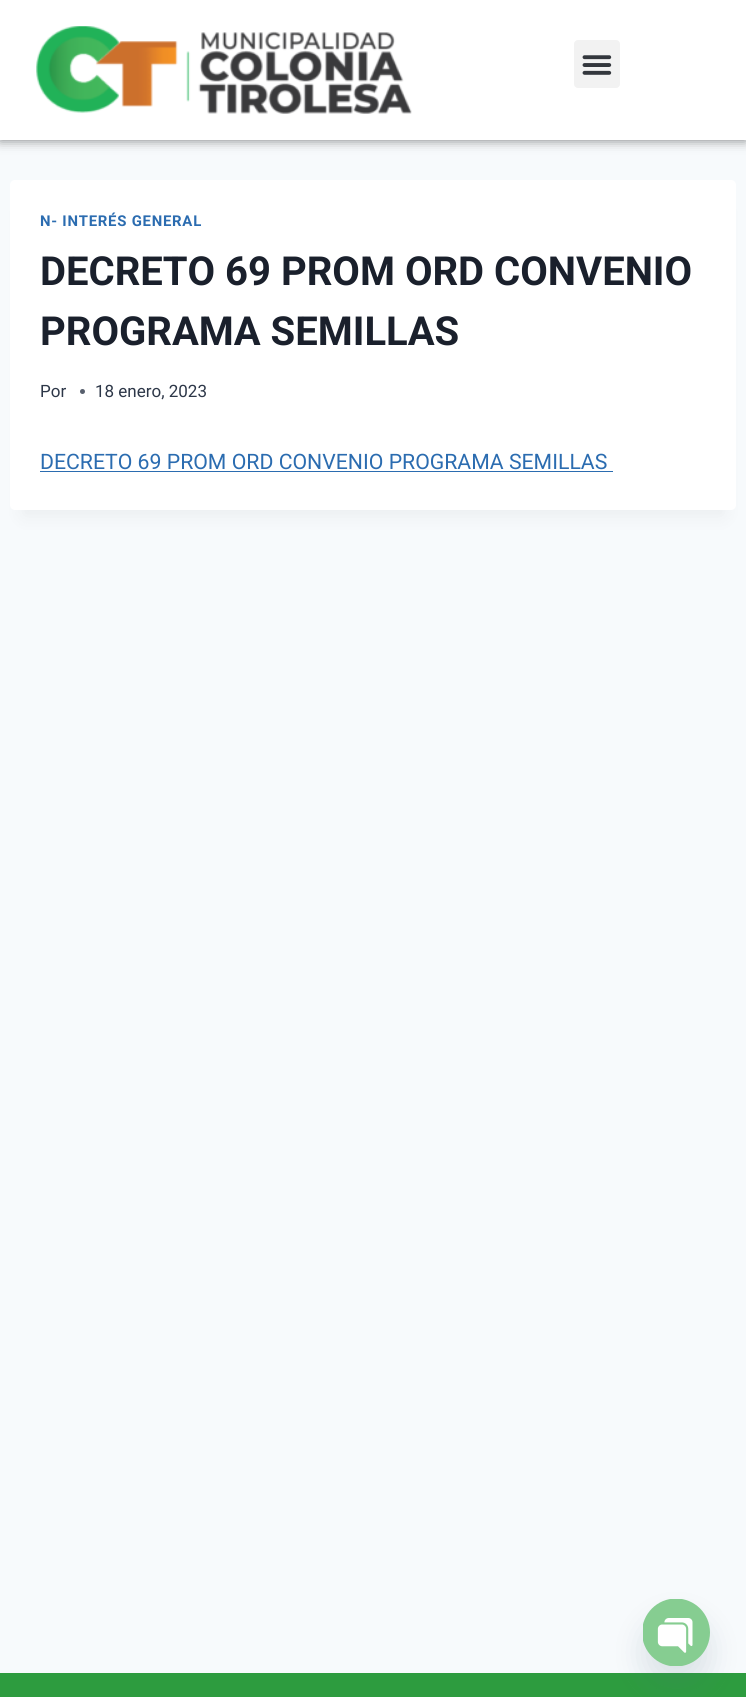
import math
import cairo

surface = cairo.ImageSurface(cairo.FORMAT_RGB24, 746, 1697)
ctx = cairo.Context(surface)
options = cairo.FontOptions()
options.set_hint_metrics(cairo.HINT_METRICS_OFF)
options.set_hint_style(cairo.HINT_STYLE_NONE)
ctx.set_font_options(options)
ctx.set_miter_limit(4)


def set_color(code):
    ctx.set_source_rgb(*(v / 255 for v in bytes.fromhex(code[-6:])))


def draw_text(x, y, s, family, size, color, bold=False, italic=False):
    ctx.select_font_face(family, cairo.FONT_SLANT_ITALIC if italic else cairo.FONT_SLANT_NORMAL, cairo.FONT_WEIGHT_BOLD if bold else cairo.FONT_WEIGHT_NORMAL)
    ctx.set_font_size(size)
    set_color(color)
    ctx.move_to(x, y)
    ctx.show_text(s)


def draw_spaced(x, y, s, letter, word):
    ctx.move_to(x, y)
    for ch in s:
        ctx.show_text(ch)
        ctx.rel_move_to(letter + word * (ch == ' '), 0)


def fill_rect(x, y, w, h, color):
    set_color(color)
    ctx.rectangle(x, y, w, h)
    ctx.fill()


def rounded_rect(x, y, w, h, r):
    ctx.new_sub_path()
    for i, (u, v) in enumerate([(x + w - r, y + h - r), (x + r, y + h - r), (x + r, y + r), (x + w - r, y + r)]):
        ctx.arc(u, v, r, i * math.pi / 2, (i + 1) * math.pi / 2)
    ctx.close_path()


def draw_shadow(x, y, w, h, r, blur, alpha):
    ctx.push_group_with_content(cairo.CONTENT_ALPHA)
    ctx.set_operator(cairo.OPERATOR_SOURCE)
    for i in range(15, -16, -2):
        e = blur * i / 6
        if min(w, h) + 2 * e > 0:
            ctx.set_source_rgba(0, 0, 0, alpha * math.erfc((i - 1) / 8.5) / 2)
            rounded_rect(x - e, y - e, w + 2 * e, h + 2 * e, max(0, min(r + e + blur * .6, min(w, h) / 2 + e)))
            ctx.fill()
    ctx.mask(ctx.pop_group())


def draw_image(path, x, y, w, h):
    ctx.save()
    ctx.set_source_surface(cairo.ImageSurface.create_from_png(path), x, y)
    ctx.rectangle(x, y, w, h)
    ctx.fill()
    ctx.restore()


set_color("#f7fafc")
ctx.paint()
set_color("#000000")
draw_shadow(0, 0, 746, 140, 0, 6, 0.5)
fill_rect(0, 0, 746, 140, "#ffffff")
draw_image("assets/img1.png", 36, 26, 376, 88)
set_color("#f2f2f2")
rounded_rect(574, 40, 46, 48, 4)
ctx.fill()
draw_image("assets/img2.png", 582, 55, 30, 20)
set_color("#000000")
draw_shadow(23, 211, 701, 305, 0, 9.5, 0.05)
set_color("#ffffff")
rounded_rect(10, 180, 726, 330, 5)
ctx.fill()
ctx.select_font_face("Roboto", cairo.FONT_SLANT_NORMAL, cairo.FONT_WEIGHT_BOLD)
ctx.set_font_size(14.9)
set_color("#2b6cb0")
draw_spaced(40, 226, "N- INTERÉS GENERAL", 0.75, 0)
draw_text(40, 285, "DECRETO 69 PROM ORD CONVENIO", "Roboto", 40, "#1a202c", bold=True)
draw_text(40, 345, "PROGRAMA SEMILLAS", "Roboto", 40, "#1a202c", bold=True)
draw_text(40, 397, "Por", "Roboto", 17, "#2d3748")
set_color("#575f6d")
ctx.new_path()
ctx.arc(82.5, 391.5, 2.5, 0, 2 * math.pi)
ctx.fill()
draw_text(95, 397, "18 enero, 2023", "Roboto", 17, "#2d3748")
draw_text(40, 469, "DECRETO 69 PROM ORD CONVENIO PROGRAMA SEMILLAS", "Roboto", 21.25, "#2b6cb0")
fill_rect(40, 471, 573, 1, "#2b6cb0")
fill_rect(0, 1673, 746, 24, "#2d9c3f")
set_color("#49687e")
draw_shadow(643, 1619, 67, 67, 33.5, 15, 0.16)
draw_image("assets/img3.png", 643, 1599, 67, 67)
surface.write_to_png("output.png")
